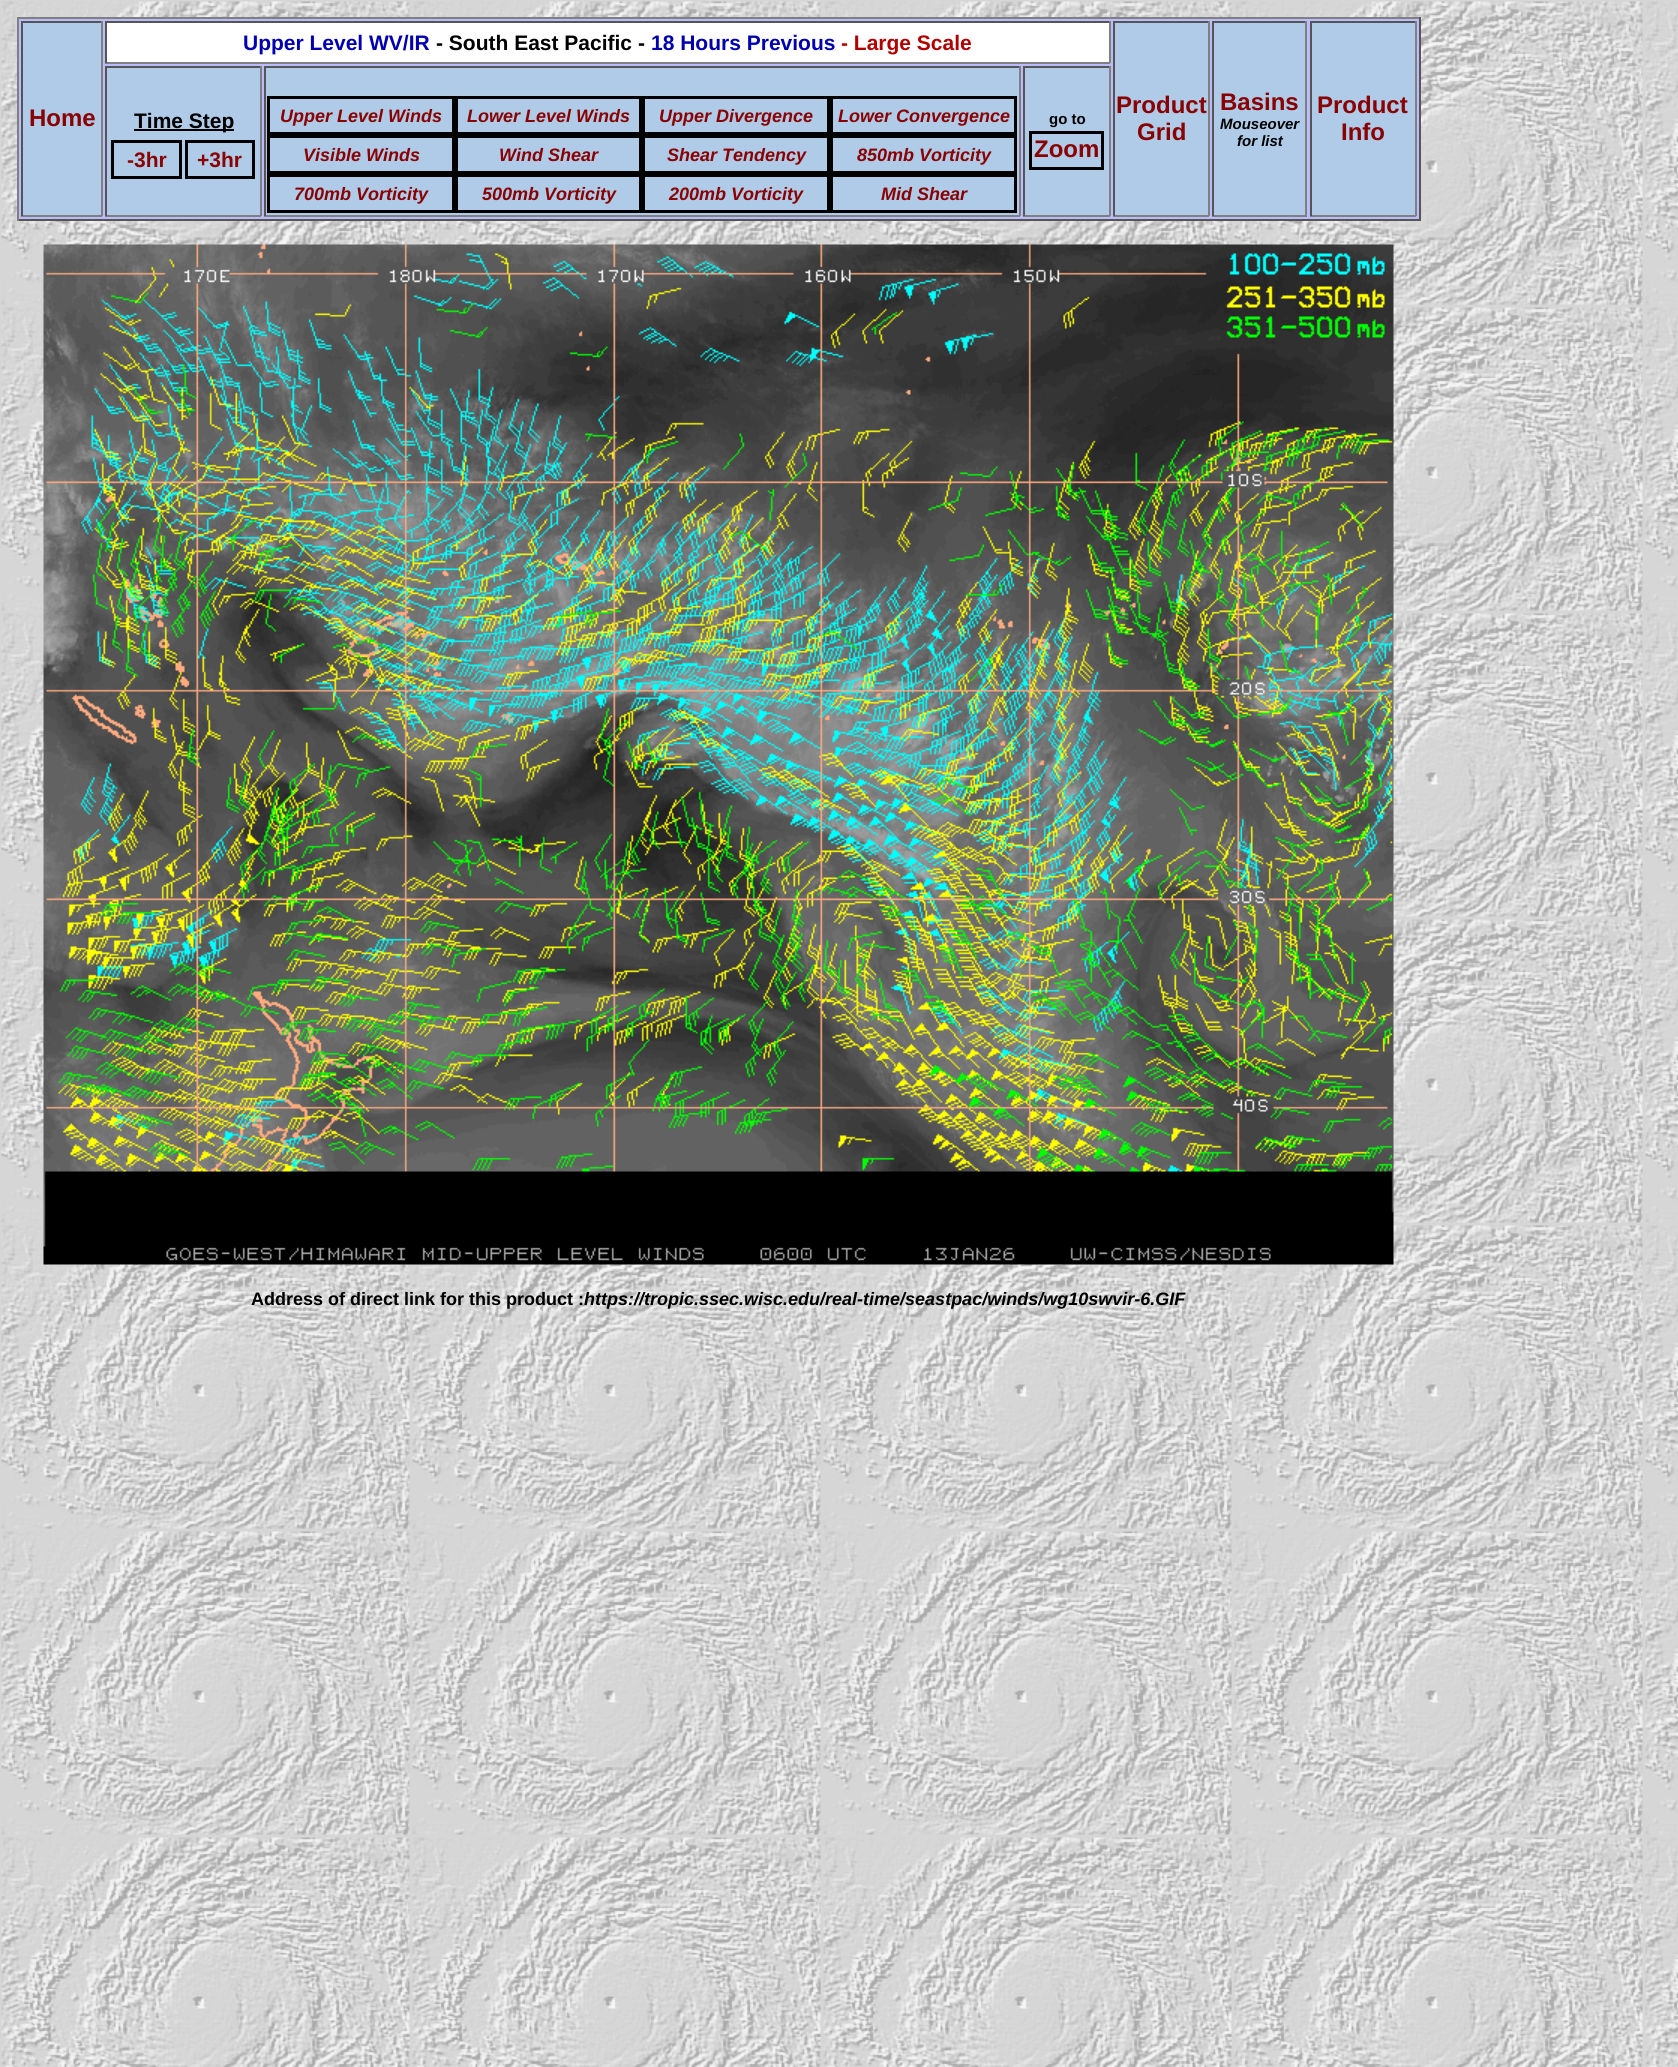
import math
import cairo

surface = cairo.ImageSurface(cairo.FORMAT_RGB24, 1678, 2067)
ctx = cairo.Context(surface)
options = cairo.FontOptions()
options.set_hint_metrics(cairo.HINT_METRICS_OFF)
options.set_hint_style(cairo.HINT_STYLE_NONE)
ctx.set_font_options(options)
ctx.set_miter_limit(4)


def set_color(code):
    ctx.set_source_rgb(*(v / 255 for v in bytes.fromhex(code[-6:])))


def draw_text(x, y, s, family, size, color, bold=False, italic=False):
    ctx.select_font_face(family, cairo.FONT_SLANT_ITALIC if italic else cairo.FONT_SLANT_NORMAL, cairo.FONT_WEIGHT_BOLD if bold else cairo.FONT_WEIGHT_NORMAL)
    ctx.set_font_size(size)
    set_color(color)
    ctx.move_to(x, y)
    ctx.show_text(s)


def fill_rect(x, y, w, h, color):
    set_color(color)
    ctx.rectangle(x, y, w, h)
    ctx.fill()


def draw_image(path, x, y, w, h):
    ctx.save()
    ctx.set_source_surface(cairo.ImageSurface.create_from_png(path), x, y)
    ctx.rectangle(x, y, w, h)
    ctx.fill()
    ctx.restore()


set_color("#ffffff")
ctx.paint()
draw_image("assets/img1.png", 0, 0, 1678, 2067)
fill_rect(19, 19, 1400, 200, "#bbbbff")
fill_rect(17, 17, 1404, 2, "#808080")
fill_rect(1419, 17, 2, 204, "#555555")
fill_rect(17, 219, 1404, 2, "#555555")
fill_rect(17, 17, 2, 204, "#808080")
fill_rect(107, 23, 1002, 39, "#ffffff")
fill_rect(105, 21, 1005, 2, "#555555")
fill_rect(1109, 21, 2, 42, "#808080")
fill_rect(105, 62, 1005, 2, "#808080")
fill_rect(105, 21, 2, 42, "#555555")
draw_text(243, 50, "Upper Level WV/IR", "Liberation Sans", 21, "#0000b0", bold=True)
draw_text(436, 50, "- South East Pacific -", "Liberation Sans", 21, "#000000", bold=True)
draw_text(651, 50, "18 Hours Previous", "Liberation Sans", 21, "#0000b0", bold=True)
draw_text(841, 50, "- Large Scale", "Liberation Sans", 21, "#b00000", bold=True)
fill_rect(23, 23, 78, 192, "#b0cbe8")
fill_rect(21, 21, 81, 2, "#555555")
fill_rect(101, 21, 2, 195, "#808080")
fill_rect(21, 215, 81, 2, "#808080")
fill_rect(21, 21, 2, 195, "#555555")
draw_text(29, 126, "Home", "Liberation Sans", 24, "#880000", bold=True)
fill_rect(1115, 23, 93, 192, "#b0cbe8")
fill_rect(1113, 21, 96, 2, "#555555")
fill_rect(1208, 21, 2, 195, "#808080")
fill_rect(1113, 215, 96, 2, "#808080")
fill_rect(1113, 21, 2, 195, "#555555")
draw_text(1116, 113, "Product", "Liberation Sans", 24, "#880000", bold=True)
draw_text(1137, 140, "Grid", "Liberation Sans", 24, "#880000", bold=True)
fill_rect(1214, 23, 91, 192, "#b0cbe8")
fill_rect(1212, 21, 95, 2, "#555555")
fill_rect(1305, 21, 2, 195, "#808080")
fill_rect(1212, 215, 95, 2, "#808080")
fill_rect(1212, 21, 2, 195, "#555555")
draw_text(1220, 110, "Basins", "Liberation Sans", 24, "#880000", bold=True)
draw_text(1220, 129, "Mouseover", "Liberation Sans", 15, "#000000", bold=True, italic=True)
draw_text(1237, 146, "for list", "Liberation Sans", 15, "#000000", bold=True, italic=True)
fill_rect(1312, 23, 103, 192, "#b0cbe8")
fill_rect(1310, 21, 106, 2, "#555555")
fill_rect(1415, 21, 2, 195, "#808080")
fill_rect(1310, 215, 106, 2, "#808080")
fill_rect(1310, 21, 2, 195, "#555555")
draw_text(1317, 113, "Product", "Liberation Sans", 24, "#880000", bold=True)
draw_text(1341, 140, "Info", "Liberation Sans", 24, "#880000", bold=True)
fill_rect(107, 68, 153, 147, "#b0cbe8")
fill_rect(105, 66, 156, 2, "#555555")
fill_rect(260, 66, 2, 150, "#808080")
fill_rect(105, 215, 156, 2, "#808080")
fill_rect(105, 66, 2, 150, "#555555")
fill_rect(134, 129, 100, 2, "#000000")
draw_text(134, 128, "Time Step", "Liberation Sans", 21, "#000000", bold=True)
ctx.rectangle(112.5, 141.5, 68, 36)
ctx.set_line_width(3)
ctx.stroke()
draw_text(127, 167, "-3hr", "Liberation Sans", 21, "#880000", bold=True)
ctx.rectangle(186.5, 141.5, 67, 36)
set_color("#000000")
ctx.stroke()
draw_text(197, 167, "+3hr", "Liberation Sans", 21, "#880000", bold=True)
fill_rect(266, 68, 753, 147, "#b0cbe8")
fill_rect(264, 66, 756, 2, "#555555")
fill_rect(1019, 66, 2, 150, "#808080")
fill_rect(264, 215, 756, 2, "#808080")
fill_rect(264, 66, 2, 150, "#555555")
ctx.rectangle(268.5, 97.5, 185, 36)
set_color("#000000")
ctx.stroke()
draw_text(280, 122, "Upper Level Winds", "Liberation Sans", 18, "#880000", bold=True, italic=True)
ctx.rectangle(456.5, 97.5, 184, 36)
set_color("#000000")
ctx.stroke()
draw_text(467, 122, "Lower Level Winds", "Liberation Sans", 18, "#880000", bold=True, italic=True)
ctx.rectangle(643.5, 97.5, 185, 36)
set_color("#000000")
ctx.stroke()
draw_text(659, 122, "Upper Divergence", "Liberation Sans", 18, "#880000", bold=True, italic=True)
ctx.rectangle(831.5, 97.5, 184, 36)
set_color("#000000")
ctx.stroke()
draw_text(838, 122, "Lower Convergence", "Liberation Sans", 18, "#880000", bold=True, italic=True)
ctx.rectangle(268.5, 136.5, 185, 36)
set_color("#000000")
ctx.stroke()
draw_text(303, 161, "Visible Winds", "Liberation Sans", 18, "#880000", bold=True, italic=True)
ctx.rectangle(456.5, 136.5, 184, 36)
set_color("#000000")
ctx.stroke()
draw_text(499, 161, "Wind Shear", "Liberation Sans", 18, "#880000", bold=True, italic=True)
ctx.rectangle(643.5, 136.5, 185, 36)
set_color("#000000")
ctx.stroke()
draw_text(667, 161, "Shear Tendency", "Liberation Sans", 18, "#880000", bold=True, italic=True)
ctx.rectangle(831.5, 136.5, 184, 36)
set_color("#000000")
ctx.stroke()
draw_text(857, 161, "850mb Vorticity", "Liberation Sans", 18, "#880000", bold=True, italic=True)
ctx.rectangle(268.5, 175.5, 185, 36)
set_color("#000000")
ctx.stroke()
draw_text(294, 200, "700mb Vorticity", "Liberation Sans", 18, "#880000", bold=True, italic=True)
ctx.rectangle(456.5, 175.5, 184, 36)
set_color("#000000")
ctx.stroke()
draw_text(482, 200, "500mb Vorticity", "Liberation Sans", 18, "#880000", bold=True, italic=True)
ctx.rectangle(643.5, 175.5, 185, 36)
set_color("#000000")
ctx.stroke()
draw_text(669, 200, "200mb Vorticity", "Liberation Sans", 18, "#880000", bold=True, italic=True)
ctx.rectangle(831.5, 175.5, 184, 36)
set_color("#000000")
ctx.stroke()
draw_text(881, 200, "Mid Shear", "Liberation Sans", 18, "#880000", bold=True, italic=True)
fill_rect(1025, 68, 84, 147, "#b0cbe8")
fill_rect(1023, 66, 87, 2, "#555555")
fill_rect(1109, 66, 2, 150, "#808080")
fill_rect(1023, 215, 87, 2, "#808080")
fill_rect(1023, 66, 2, 150, "#555555")
draw_text(1049, 124, "go to", "Liberation Sans", 15, "#000000", bold=True)
ctx.rectangle(1030.5, 132.5, 72, 36)
ctx.stroke()
draw_text(1034, 157, "Zoom", "Liberation Sans", 24, "#880000", bold=True)
draw_image("assets/img2.png", 43, 244, 1351, 1021)
draw_text(251, 1305, "Address of direct link for this product :", "Liberation Sans", 18, "#000000", bold=True)
draw_text(584, 1305, "https://tropic.ssec.wisc.edu/real-time/seastpac/winds/wg10swvir-6.GIF", "Liberation Sans", 18, "#000000", bold=True, italic=True)
surface.write_to_png("output.png")
